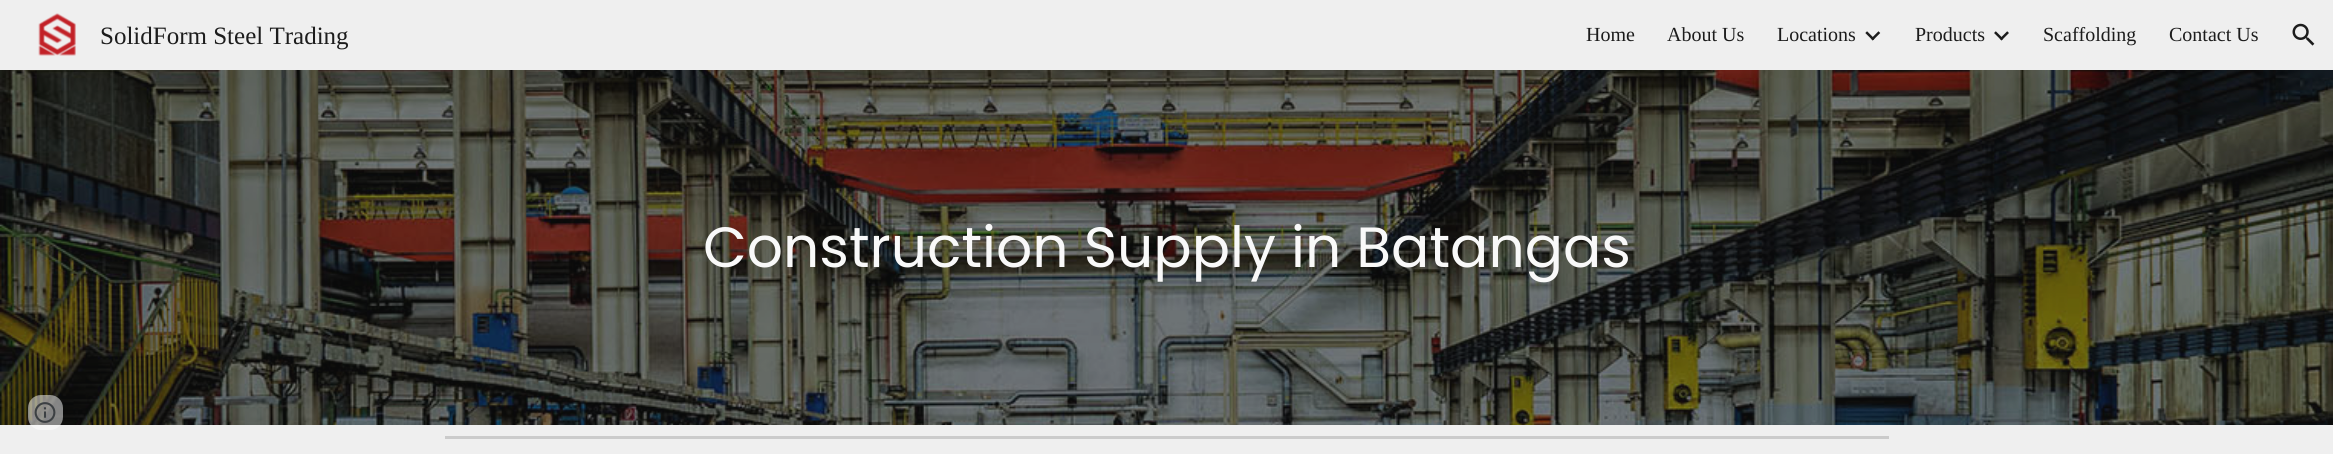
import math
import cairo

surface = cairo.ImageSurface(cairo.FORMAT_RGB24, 2333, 454)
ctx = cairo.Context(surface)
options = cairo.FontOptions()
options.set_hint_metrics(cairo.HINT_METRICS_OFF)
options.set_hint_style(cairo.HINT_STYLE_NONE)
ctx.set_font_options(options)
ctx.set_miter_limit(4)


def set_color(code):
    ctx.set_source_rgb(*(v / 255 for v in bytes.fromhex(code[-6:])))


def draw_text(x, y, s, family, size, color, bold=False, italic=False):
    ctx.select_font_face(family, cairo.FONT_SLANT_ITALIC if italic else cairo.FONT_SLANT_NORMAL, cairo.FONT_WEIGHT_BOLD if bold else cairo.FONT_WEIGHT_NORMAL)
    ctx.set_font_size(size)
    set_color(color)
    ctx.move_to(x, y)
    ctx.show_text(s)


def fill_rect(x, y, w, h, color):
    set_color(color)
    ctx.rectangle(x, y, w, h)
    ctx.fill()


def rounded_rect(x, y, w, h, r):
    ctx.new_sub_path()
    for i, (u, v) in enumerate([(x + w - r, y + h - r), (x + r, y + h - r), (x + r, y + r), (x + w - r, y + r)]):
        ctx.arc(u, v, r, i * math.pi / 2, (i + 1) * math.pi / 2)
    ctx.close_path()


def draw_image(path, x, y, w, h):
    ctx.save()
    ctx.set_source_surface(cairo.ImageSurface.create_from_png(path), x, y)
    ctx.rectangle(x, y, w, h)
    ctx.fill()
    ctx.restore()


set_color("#ffffff")
ctx.paint()
fill_rect(0, 0, 2333, 70, "#efefef")
draw_image("assets/img1.png", 38, 13, 38, 43)
draw_text(100, 44, "SolidForm Steel Trading", "Liberation Serif", 25, "#1c1c1c")
draw_text(1586, 41, "Home", "Liberation Serif", 20, "#1c1c1c")
draw_text(1667, 41, "About Us", "Liberation Serif", 20, "#1c1c1c")
draw_text(1777, 41, "Locations", "Liberation Serif", 20, "#1c1c1c")
draw_image("assets/img2.png", 1865, 31, 16, 10)
draw_text(1915, 41, "Products", "Liberation Serif", 20, "#1c1c1c")
draw_image("assets/img3.png", 1994, 31, 15, 10)
draw_text(2043, 41, "Scaffolding", "Liberation Serif", 20, "#1c1c1c")
draw_text(2169, 41, "Contact Us", "Liberation Serif", 20, "#1c1c1c")
draw_image("assets/img4.png", 2292, 23, 23, 23)
draw_image("assets/img5.png", 0, 70, 2333, 355)
draw_text(703, 267, "Construction Supply in Batangas", "Poppins", 56.7, "#f9f9f9")
fill_rect(0, 425, 2333, 29, "#efefef")
ctx.set_source_rgba(1, 1, 1, 0.5)
rounded_rect(28, 395, 35, 35, 13)
ctx.fill()
draw_image("assets/img6.png", 34, 402, 22, 21)
fill_rect(445, 436, 1444, 3, "#cbcbcb")
surface.write_to_png("output.png")
